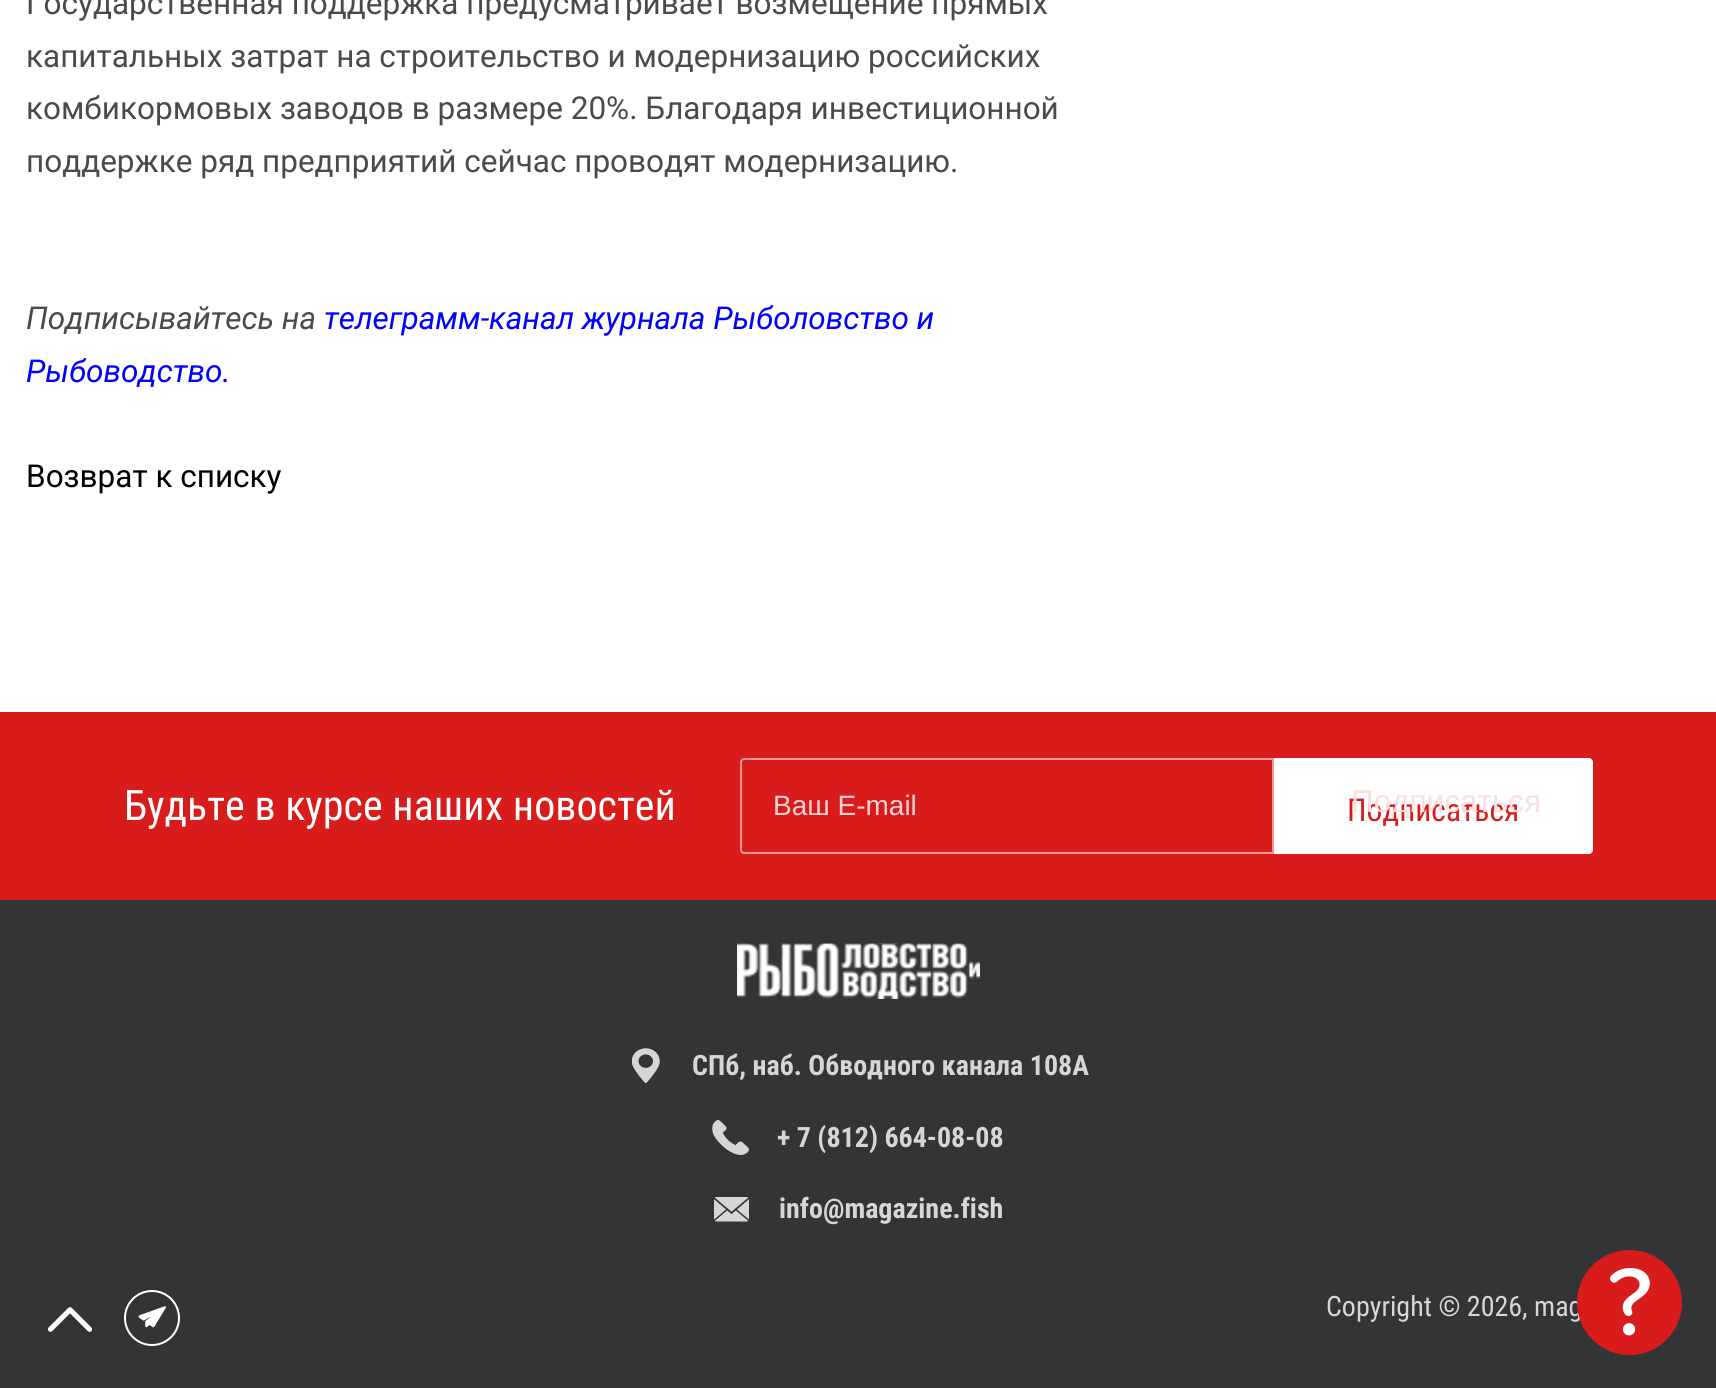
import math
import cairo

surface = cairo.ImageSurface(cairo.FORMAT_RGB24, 1716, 1388)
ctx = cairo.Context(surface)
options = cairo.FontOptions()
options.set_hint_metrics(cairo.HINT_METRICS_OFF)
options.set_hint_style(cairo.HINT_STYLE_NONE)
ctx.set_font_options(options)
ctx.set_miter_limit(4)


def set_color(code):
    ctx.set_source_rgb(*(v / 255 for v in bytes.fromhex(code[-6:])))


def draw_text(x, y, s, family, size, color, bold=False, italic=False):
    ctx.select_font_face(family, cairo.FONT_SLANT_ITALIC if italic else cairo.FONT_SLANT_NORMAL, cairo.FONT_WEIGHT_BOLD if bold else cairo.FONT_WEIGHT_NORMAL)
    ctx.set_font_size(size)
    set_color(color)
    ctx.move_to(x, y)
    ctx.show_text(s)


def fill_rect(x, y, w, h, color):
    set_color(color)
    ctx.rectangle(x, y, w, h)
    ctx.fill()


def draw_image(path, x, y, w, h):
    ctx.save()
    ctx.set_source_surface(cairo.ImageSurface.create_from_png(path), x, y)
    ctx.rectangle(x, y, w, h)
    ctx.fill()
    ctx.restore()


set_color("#ffffff")
ctx.paint()
draw_text(26, 14, "Государственная поддержка предусматривает возмещение прямых", "Roboto", 31.5, "#4a4a4a")
draw_text(26, 67, "капитальных затрат на строительство и модернизацию российских", "Roboto", 31.5, "#4a4a4a")
draw_text(26, 119, "комбикормовых заводов в размере 20%. Благодаря инвестиционной", "Roboto", 31.5, "#4a4a4a")
draw_text(26, 172, "поддержке ряд предприятий сейчас проводят модернизацию.", "Roboto", 31.5, "#4a4a4a")
draw_text(26, 329, "Подписывайтесь на", "Roboto", 31.5, "#4a4a4a", italic=True)
draw_text(324, 329, "телеграмм-канал журнала Рыболовство и", "Roboto", 31.5, "#0000ff", italic=True)
draw_text(26, 382, "Рыбоводство.", "Roboto", 31.5, "#0000ff", italic=True)
draw_text(26, 487, "Возврат к списку", "Roboto", 31.5, "#000000")
fill_rect(0, 900, 1716, 488, "#333436")
draw_image("assets/img1.png", 40, 1290, 56, 56)
fill_rect(0, 712, 1716, 188, "#d81c1c")
draw_text(124, 820, "Будьте в курсе наших новостей", "Roboto Condensed", 42, "#ffffff")
ctx.new_path()
ctx.move_to(744, 759)
ctx.line_to(1273, 759)
ctx.line_to(1273, 853)
ctx.line_to(744, 853)
ctx.curve_to(742.5, 853, 741, 851.5, 741, 850)
ctx.line_to(741, 762)
ctx.curve_to(741, 760.5, 742.5, 759, 744, 759)
ctx.close_path()
set_color("#ed9696")
ctx.stroke()
draw_text(773, 815, "Ваш E-mail", "Liberation Sans", 28, "#f7d2d2")
set_color("#ffffff")
ctx.new_path()
ctx.move_to(1274, 758)
ctx.line_to(1589, 758)
ctx.curve_to(1591, 758, 1593, 760, 1593, 762)
ctx.line_to(1593, 850)
ctx.curve_to(1593, 852, 1591, 854, 1589, 854)
ctx.line_to(1274, 854)
ctx.close_path()
ctx.fill()
draw_text(1347, 821, "Подписаться", "Roboto Condensed", 31.5, "#d81c1c")
draw_text(1351, 812, "Подписаться", "Liberation Sans", 31.5, "#f9dfdf")
draw_image("assets/img2.png", 737, 943, 243, 56)
draw_image("assets/img3.png", 632, 1048, 28, 35)
draw_text(692, 1075, "СПб, наб. Обводного канала 108А", "Roboto Condensed", 28, "#d6d6d7", bold=True)
draw_image("assets/img4.png", 712, 1120, 37, 35)
draw_text(777, 1147, "+ 7 (812) 664-08-08", "Roboto Condensed", 28, "#d6d6d7", bold=True)
draw_image("assets/img5.png", 714, 1197, 35, 25)
draw_text(779, 1218, "info@magazine.fish", "Roboto Condensed", 28, "#d6d6d7", bold=True)
ctx.new_path()
ctx.arc(152, 1318, 27, 0, 2 * math.pi)
set_color("#ffffff")
ctx.stroke()
draw_image("assets/img6.png", 138, 1306, 28, 22)
draw_text(1326, 1316, "Copyright © 2026, mag", "Roboto Condensed", 28, "#d6d6d7")
set_color("#d81c1c")
ctx.new_path()
ctx.arc(1629.5, 1302.5, 52.5, 0, 2 * math.pi)
ctx.fill()
draw_image("assets/img7.png", 1610, 1268, 40, 68)
surface.write_to_png("output.png")
